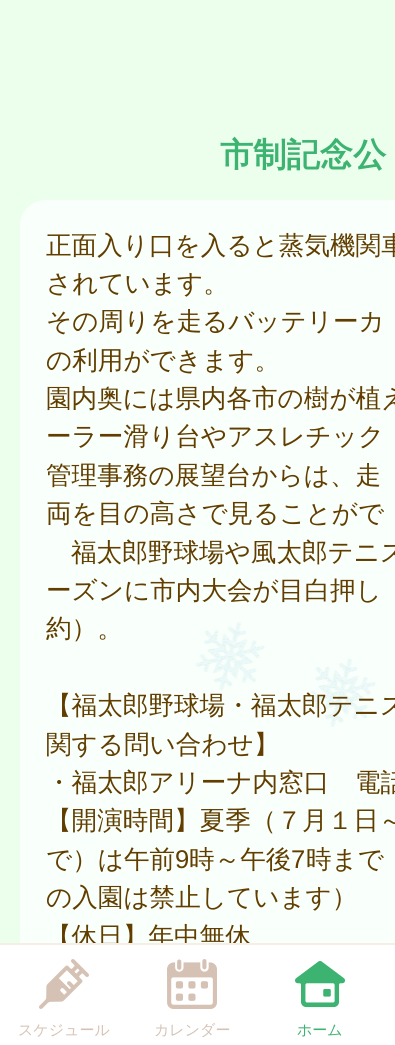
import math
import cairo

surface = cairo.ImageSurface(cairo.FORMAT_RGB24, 395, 1045)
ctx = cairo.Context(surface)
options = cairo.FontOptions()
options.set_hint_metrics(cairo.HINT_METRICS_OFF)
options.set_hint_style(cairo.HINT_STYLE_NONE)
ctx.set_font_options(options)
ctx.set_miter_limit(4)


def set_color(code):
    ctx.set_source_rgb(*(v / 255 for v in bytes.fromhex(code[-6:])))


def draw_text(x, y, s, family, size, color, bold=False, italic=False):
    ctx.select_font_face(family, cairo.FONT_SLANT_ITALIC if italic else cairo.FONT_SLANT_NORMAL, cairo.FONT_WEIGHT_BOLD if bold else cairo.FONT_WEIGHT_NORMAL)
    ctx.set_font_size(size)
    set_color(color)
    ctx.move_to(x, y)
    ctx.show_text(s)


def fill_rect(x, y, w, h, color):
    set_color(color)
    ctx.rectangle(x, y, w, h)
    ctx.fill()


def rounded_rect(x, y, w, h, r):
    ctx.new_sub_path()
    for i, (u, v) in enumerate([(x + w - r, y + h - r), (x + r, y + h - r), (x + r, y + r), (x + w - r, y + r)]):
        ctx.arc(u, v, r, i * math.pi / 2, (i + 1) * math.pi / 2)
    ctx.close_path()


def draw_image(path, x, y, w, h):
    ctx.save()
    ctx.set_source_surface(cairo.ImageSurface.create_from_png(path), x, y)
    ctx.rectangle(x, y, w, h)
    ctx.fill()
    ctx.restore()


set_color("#ecffed")
ctx.paint()
draw_image("assets/img1.png", 125, 622, 251, 321)
draw_text(220, 166, "市制記念公", "WenQuanYi Zen Hei", 33.25, "#3cb371", bold=True)
ctx.set_source_rgba(1, 1, 1, 0.7)
rounded_rect(20, 200, 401, 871, 26)
ctx.fill()
draw_text(46, 254, "正面入り口を入ると蒸気機関車", "WenQuanYi Zen Hei Medium", 25.6, "#613e00")
draw_text(46, 292, "されています。", "WenQuanYi Zen Hei Medium", 25.6, "#613e00")
draw_text(46, 330, "その周りを走るバッテリーカ", "WenQuanYi Zen Hei Medium", 25.6, "#613e00")
draw_text(46, 369, "の利用ができます。", "WenQuanYi Zen Hei Medium", 25.6, "#613e00")
draw_text(46, 407, "園内奥には県内各市の樹が植え", "WenQuanYi Zen Hei Medium", 25.6, "#613e00")
draw_text(46, 445, "ーラー滑り台やアスレチック", "WenQuanYi Zen Hei Medium", 25.6, "#613e00")
draw_text(46, 484, "管理事務の展望台からは、走", "WenQuanYi Zen Hei Medium", 25.6, "#613e00")
draw_text(46, 522, "両を目の高さで見ることがで", "WenQuanYi Zen Hei Medium", 25.6, "#613e00")
draw_text(71, 561, "福太郎野球場や風太郎テニス", "WenQuanYi Zen Hei Medium", 25.6, "#613e00")
draw_text(46, 599, "ーズンに市内大会が目白押し", "WenQuanYi Zen Hei Medium", 25.6, "#613e00")
draw_text(46, 637, "約）。", "WenQuanYi Zen Hei Medium", 25.6, "#613e00")
draw_text(46, 714, "【福太郎野球場・福太郎テニス", "WenQuanYi Zen Hei Medium", 25.6, "#613e00")
draw_text(46, 753, "関する問い合わせ】", "WenQuanYi Zen Hei Medium", 25.6, "#613e00")
draw_text(46, 791, "・福太郎アリーナ内窓口　電話", "WenQuanYi Zen Hei Medium", 25.6, "#613e00")
draw_text(46, 829, "【開演時間】夏季（７月１日～", "WenQuanYi Zen Hei Medium", 25.6, "#613e00")
draw_text(46, 868, "で）は午前", "WenQuanYi Zen Hei Medium", 25.6, "#613e00")
draw_text(175, 868, "9", "Liberation Sans", 25.6, "#613e00")
draw_text(189, 868, "時～午後", "WenQuanYi Zen Hei Medium", 25.6, "#613e00")
draw_text(291, 868, "7", "Liberation Sans", 25.6, "#613e00")
draw_text(306, 868, "時まで", "WenQuanYi Zen Hei Medium", 25.6, "#613e00")
draw_text(46, 906, "の入園は禁止しています）", "WenQuanYi Zen Hei Medium", 25.6, "#613e00")
draw_text(46, 945, "【休日】年中無休", "WenQuanYi Zen Hei Medium", 25.6, "#613e00")
fill_rect(0, 943, 395, 2, "#f5eee5")
fill_rect(0, 945, 395, 100, "#ffffff")
draw_image("assets/img2.png", 39, 959, 50, 50)
draw_text(18, 1035, "スケジュール", "WenQuanYi Zen Hei Medium", 15, "#d5c2b4")
draw_image("assets/img3.png", 167, 959, 50, 50)
draw_text(154, 1035, "カレンダー", "WenQuanYi Zen Hei Medium", 15, "#d5c2b4")
draw_image("assets/img4.png", 295, 961, 50, 47)
draw_text(297, 1035, "ホーム", "WenQuanYi Zen Hei Medium", 15, "#3cb371")
surface.write_to_png("output.png")
